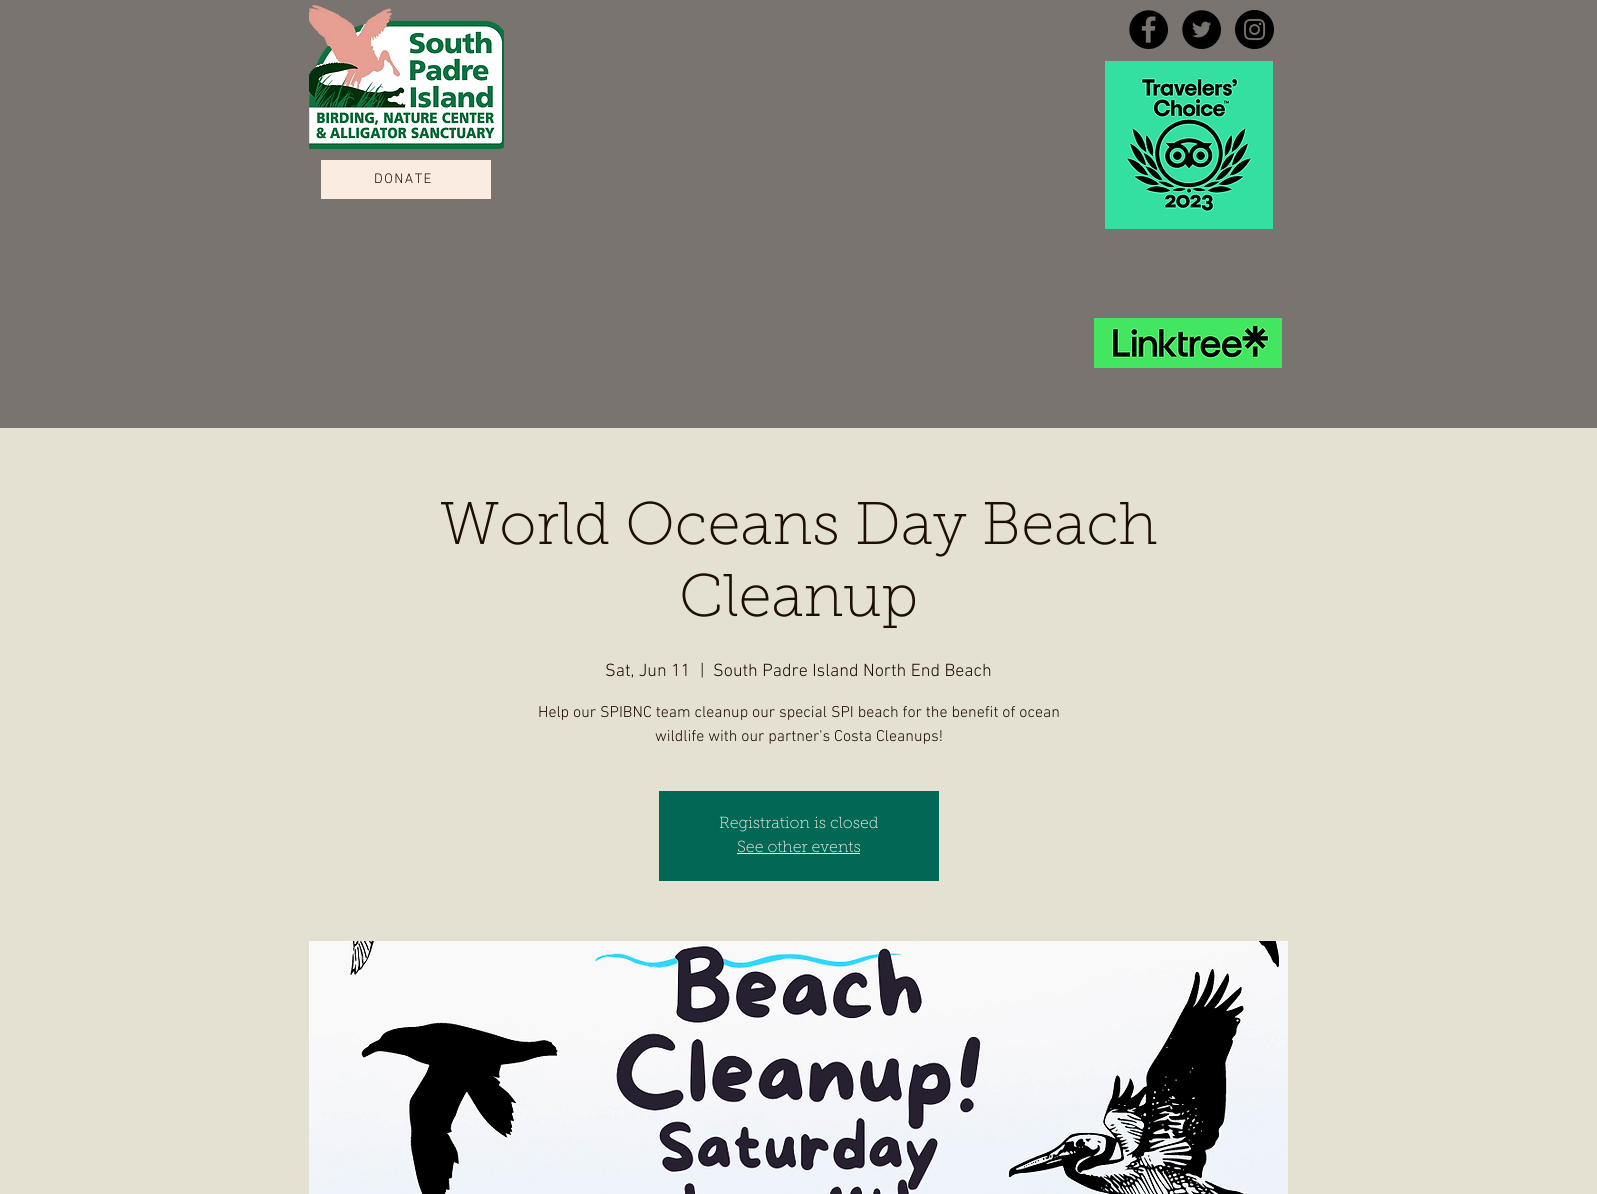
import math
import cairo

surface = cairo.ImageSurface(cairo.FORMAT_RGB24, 1597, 1194)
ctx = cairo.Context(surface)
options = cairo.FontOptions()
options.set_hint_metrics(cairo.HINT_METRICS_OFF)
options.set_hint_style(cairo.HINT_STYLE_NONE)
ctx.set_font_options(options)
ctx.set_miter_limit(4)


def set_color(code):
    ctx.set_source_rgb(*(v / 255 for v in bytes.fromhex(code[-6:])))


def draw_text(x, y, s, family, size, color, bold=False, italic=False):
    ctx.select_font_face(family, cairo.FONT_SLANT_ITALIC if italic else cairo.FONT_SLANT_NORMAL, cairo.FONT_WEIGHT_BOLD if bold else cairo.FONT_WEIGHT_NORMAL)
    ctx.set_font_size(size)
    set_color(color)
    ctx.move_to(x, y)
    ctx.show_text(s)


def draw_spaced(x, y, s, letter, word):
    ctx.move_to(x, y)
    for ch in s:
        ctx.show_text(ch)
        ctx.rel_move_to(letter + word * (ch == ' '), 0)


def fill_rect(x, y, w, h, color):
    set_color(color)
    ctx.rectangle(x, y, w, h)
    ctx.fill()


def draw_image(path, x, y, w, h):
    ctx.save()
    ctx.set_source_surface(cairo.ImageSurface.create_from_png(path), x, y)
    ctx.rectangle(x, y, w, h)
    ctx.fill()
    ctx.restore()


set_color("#79746f")
ctx.paint()
draw_image("assets/img1.png", 309, 5, 195, 144)
draw_image("assets/img2.png", 1129, 10, 39, 39)
draw_image("assets/img3.png", 1182, 10, 39, 39)
draw_image("assets/img4.png", 1235, 10, 39, 39)
fill_rect(321, 160, 170, 39, "#faece1")
ctx.select_font_face("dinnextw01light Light")
ctx.set_font_size(14)
set_color("#1d0e03")
draw_spaced(374, 183, "DONATE", 1.5, 0)
draw_image("assets/img5.png", 1105, 61, 168, 168)
draw_image("assets/img6.png", 1094, 318, 188, 50)
fill_rect(0, 428, 1597, 766, "#e4e0d2")
draw_text(440, 544, "World Oceans Day Beach", "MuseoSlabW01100 Thin", 60, "#1d0e03")
draw_text(679, 616, "Cleanup", "MuseoSlabW01100 Thin", 60, "#1d0e03")
draw_text(605, 676, "Sat, Jun 11", "dinnextw01light Light", 18, "#1d0e03")
draw_text(700, 676, "|", "dinnextw01light Light", 18, "#1d0e03")
draw_text(713, 676, "South Padre Island North End Beach", "dinnextw01light Light", 18, "#1d0e03")
draw_text(538, 717, "Help our SPIBNC team cleanup our special SPI beach for the benefit of ocean", "dinnextw01light Light", 16, "#1d0e03")
draw_text(655, 741, "wildlife with our partner's Costa Cleanups!", "dinnextw01light Light", 16, "#1d0e03")
fill_rect(659, 791, 280, 90, "#016855")
draw_text(719, 828, "Registration is closed", "MuseoSlabW01100 Thin", 16, "#faece1")
draw_text(737, 852, "See other events", "MuseoSlabW01100 Thin", 16, "#faece1")
fill_rect(737, 853, 123, 1, "#faece1")
draw_image("assets/img7.png", 309, 941, 979, 253)
surface.write_to_png("output.png")
